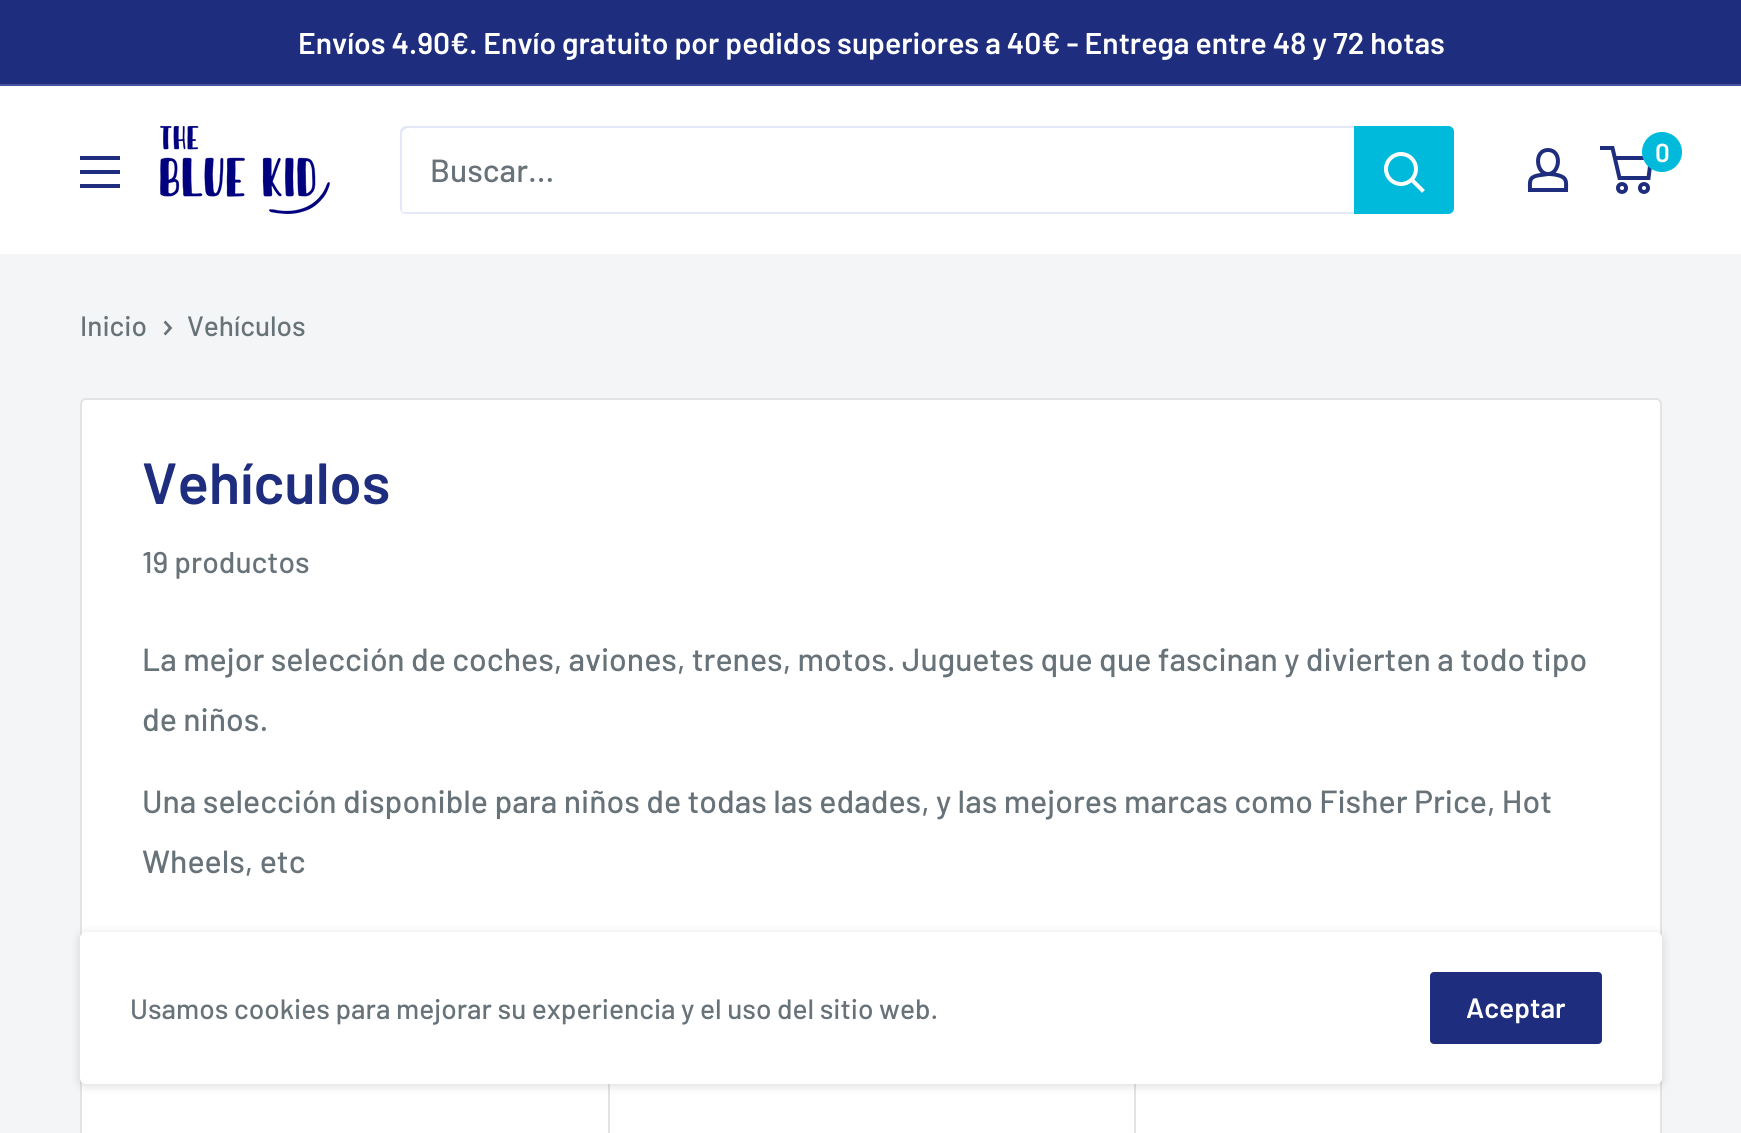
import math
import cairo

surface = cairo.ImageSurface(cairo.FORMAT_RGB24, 1741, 1133)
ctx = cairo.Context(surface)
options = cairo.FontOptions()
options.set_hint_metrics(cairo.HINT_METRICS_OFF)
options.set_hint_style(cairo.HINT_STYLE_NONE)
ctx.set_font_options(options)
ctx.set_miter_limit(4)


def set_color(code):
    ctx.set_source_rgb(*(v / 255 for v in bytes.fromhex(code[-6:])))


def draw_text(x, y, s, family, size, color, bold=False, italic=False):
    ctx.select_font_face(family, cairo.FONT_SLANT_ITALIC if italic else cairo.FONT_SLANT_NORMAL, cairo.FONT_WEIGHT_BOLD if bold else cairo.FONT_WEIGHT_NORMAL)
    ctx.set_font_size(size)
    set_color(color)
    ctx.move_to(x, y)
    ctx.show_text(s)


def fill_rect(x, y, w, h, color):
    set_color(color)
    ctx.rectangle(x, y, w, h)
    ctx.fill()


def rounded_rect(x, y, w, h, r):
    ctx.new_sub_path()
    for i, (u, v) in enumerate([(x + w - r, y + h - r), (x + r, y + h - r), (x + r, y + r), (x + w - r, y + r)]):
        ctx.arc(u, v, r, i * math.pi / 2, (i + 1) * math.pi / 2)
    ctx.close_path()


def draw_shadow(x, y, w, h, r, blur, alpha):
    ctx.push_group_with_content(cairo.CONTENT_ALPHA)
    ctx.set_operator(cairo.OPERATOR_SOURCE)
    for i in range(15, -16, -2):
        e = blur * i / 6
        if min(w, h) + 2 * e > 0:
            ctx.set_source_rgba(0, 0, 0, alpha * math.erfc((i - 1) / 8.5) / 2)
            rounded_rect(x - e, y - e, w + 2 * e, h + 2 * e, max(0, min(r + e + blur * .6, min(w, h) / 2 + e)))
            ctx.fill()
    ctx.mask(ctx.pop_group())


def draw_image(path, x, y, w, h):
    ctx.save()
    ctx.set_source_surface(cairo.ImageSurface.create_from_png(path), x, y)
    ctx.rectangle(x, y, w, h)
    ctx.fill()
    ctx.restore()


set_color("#f3f5f6")
ctx.paint()
fill_rect(0, 0, 1741, 84, "#1e2d7d")
fill_rect(0, 84, 1741, 2, "#46549f")
draw_text(298, 54, "Envíos 4.90€. Envío gratuito por pedidos superiores a 40€ - Entrega entre 48 y 72 hotas", "Barlow SemiBold", 30, "#ffffff")
fill_rect(0, 86, 1741, 168, "#ffffff")
draw_image("assets/img1.png", 160, 126, 170, 88)
ctx.new_path()
ctx.move_to(1548, 174)
ctx.curve_to(1552, 174, 1555.5, 174.5, 1559, 175.5)
ctx.curve_to(1567.5, 178, 1566, 182.5, 1566, 190)
ctx.line_to(1530, 190)
ctx.curve_to(1530, 182, 1528.5, 177.5, 1537.5, 175.5)
ctx.close_path()
ctx.move_to(1548, 174)
ctx.curve_to(1536, 174, 1533.5, 150, 1548, 150)
ctx.curve_to(1562.5, 150, 1560, 174, 1548, 174)
ctx.close_path()
set_color("#1e2d7d")
ctx.set_line_width(4)
ctx.stroke()
ctx.arc(1622, 188, 4, 0, 2 * math.pi)
ctx.stroke()
ctx.arc(1644, 188, 4, 0, 2 * math.pi)
ctx.stroke()
ctx.new_path()
ctx.move_to(1614.5, 158)
ctx.line_to(1651, 158)
ctx.line_to(1648.5, 178)
ctx.line_to(1619.5, 178)
ctx.line_to(1612.5, 148)
ctx.line_to(1600, 148)
ctx.stroke()
set_color("#00badb")
ctx.arc(1662, 152, 20, 0, 2 * math.pi)
ctx.fill()
draw_text(1655, 162, "0", "Barlow SemiBold", 26, "#ffffff")
set_color("#1e2d7d")
ctx.set_fill_rule(cairo.FILL_RULE_EVEN_ODD)
ctx.new_path()
ctx.move_to(80, 184)
ctx.line_to(120, 184)
ctx.line_to(120, 188)
ctx.line_to(80, 188)
ctx.close_path()
ctx.move_to(80, 156)
ctx.line_to(120, 156)
ctx.line_to(120, 160)
ctx.line_to(80, 160)
ctx.close_path()
ctx.move_to(80, 170)
ctx.line_to(120, 170)
ctx.line_to(120, 174)
ctx.line_to(80, 174)
ctx.close_path()
ctx.fill()
set_color("#e3e7fa")
ctx.set_fill_rule(cairo.FILL_RULE_WINDING)
ctx.new_path()
ctx.move_to(401, 211)
ctx.curve_to(402, 213, 404, 214, 406, 214)
ctx.line_to(1448, 214)
ctx.curve_to(1451, 214, 1454, 211, 1454, 208)
ctx.line_to(1454, 132)
ctx.curve_to(1454, 130, 1453, 128, 1451, 127)
ctx.curve_to(1452, 128, 1452, 129, 1452, 130)
ctx.line_to(1452, 206)
ctx.curve_to(1452, 209, 1449, 212, 1446, 212)
ctx.line_to(404, 212)
ctx.curve_to(403, 212, 402, 212, 401, 211)
ctx.close_path()
ctx.fill()
ctx.set_source_rgba(0.639, 0.686, 0.937, 0.3)
ctx.new_path()
ctx.move_to(408, 128)
ctx.line_to(1450, 128)
ctx.line_to(1453, 129)
ctx.curve_to(1452, 127, 1450, 126, 1448, 126)
ctx.line_to(406, 126)
ctx.curve_to(403, 126, 400, 129, 400, 132)
ctx.line_to(400, 208)
ctx.curve_to(400, 210, 401, 212, 403, 213)
ctx.curve_to(402, 212, 402, 211, 402, 210)
ctx.line_to(402, 134)
ctx.curve_to(402, 131, 405, 128, 408, 128)
ctx.close_path()
ctx.fill()
draw_text(430, 182, "Buscar...", "Barlow Medium", 32, "#677279")
set_color("#00badb")
ctx.new_path()
ctx.move_to(1354, 126)
ctx.line_to(1448, 126)
ctx.curve_to(1451.5, 126, 1454, 128.5, 1454, 132)
ctx.line_to(1454, 208)
ctx.curve_to(1454, 211.5, 1451.5, 214, 1448, 214)
ctx.line_to(1354, 214)
ctx.close_path()
ctx.fill()
ctx.new_path()
ctx.move_to(1422, 190)
ctx.line_to(1412, 180)
set_color("#ffffff")
ctx.set_line_cap(cairo.LINE_CAP_SQUARE)
ctx.stroke()
ctx.arc(1401, 169, 15, 0, 2 * math.pi)
ctx.set_line_cap(cairo.LINE_CAP_BUTT)
ctx.stroke()
draw_text(80, 336, "Inicio", "Barlow Medium", 28, "#677279")
ctx.new_path()
ctx.move_to(165.5, 322.5)
ctx.line_to(170.5, 328)
ctx.line_to(165.5, 333.5)
ctx.set_line_width(2.7)
ctx.set_line_cap(cairo.LINE_CAP_SQUARE)
ctx.stroke()
draw_text(187, 336, "Vehículos", "Barlow Medium", 28, "#677279")
set_color("#ffffff")
rounded_rect(81, 399, 1580, 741, 5)
ctx.fill_preserve()
set_color("#e1e3e4")
ctx.set_line_width(2)
ctx.set_line_cap(cairo.LINE_CAP_BUTT)
ctx.stroke()
draw_text(142, 504, "Vehículos", "Barlow SemiBold", 58, "#1e2d7d")
draw_text(142, 573, "19 productos", "Barlow Medium", 30, "#677279")
draw_text(142, 671, "La mejor selección de coches, aviones, trenes, motos. Juguetes que que fascinan y divierten a todo tipo", "Barlow Medium", 32, "#677279")
draw_text(142, 731, "de niños.", "Barlow Medium", 32, "#677279")
draw_text(142, 813, "Una selección disponible para niños de todas las edades, y las mejores marcas como Fisher Price, Hot", "Barlow Medium", 32, "#677279")
draw_text(142, 873, "Wheels, etc", "Barlow Medium", 32, "#677279")
fill_rect(608, 1084, 2, 49, "#e1e3e4")
fill_rect(1134, 1084, 2, 49, "#e1e3e4")
set_color("#000000")
draw_shadow(78, 932, 1586, 156, 8, 4, 0.1)
set_color("#ffffff")
rounded_rect(80, 932, 1582, 152, 6)
ctx.fill()
draw_text(130, 1019, "Usamos cookies para mejorar su experiencia y el uso del sitio web.", "Barlow Medium", 28, "#677279")
set_color("#1e2d7d")
rounded_rect(1430, 972, 172, 72, 4)
ctx.fill()
draw_text(1466, 1018, "Aceptar", "Barlow SemiBold", 28, "#ffffff")
surface.write_to_png("output.png")
